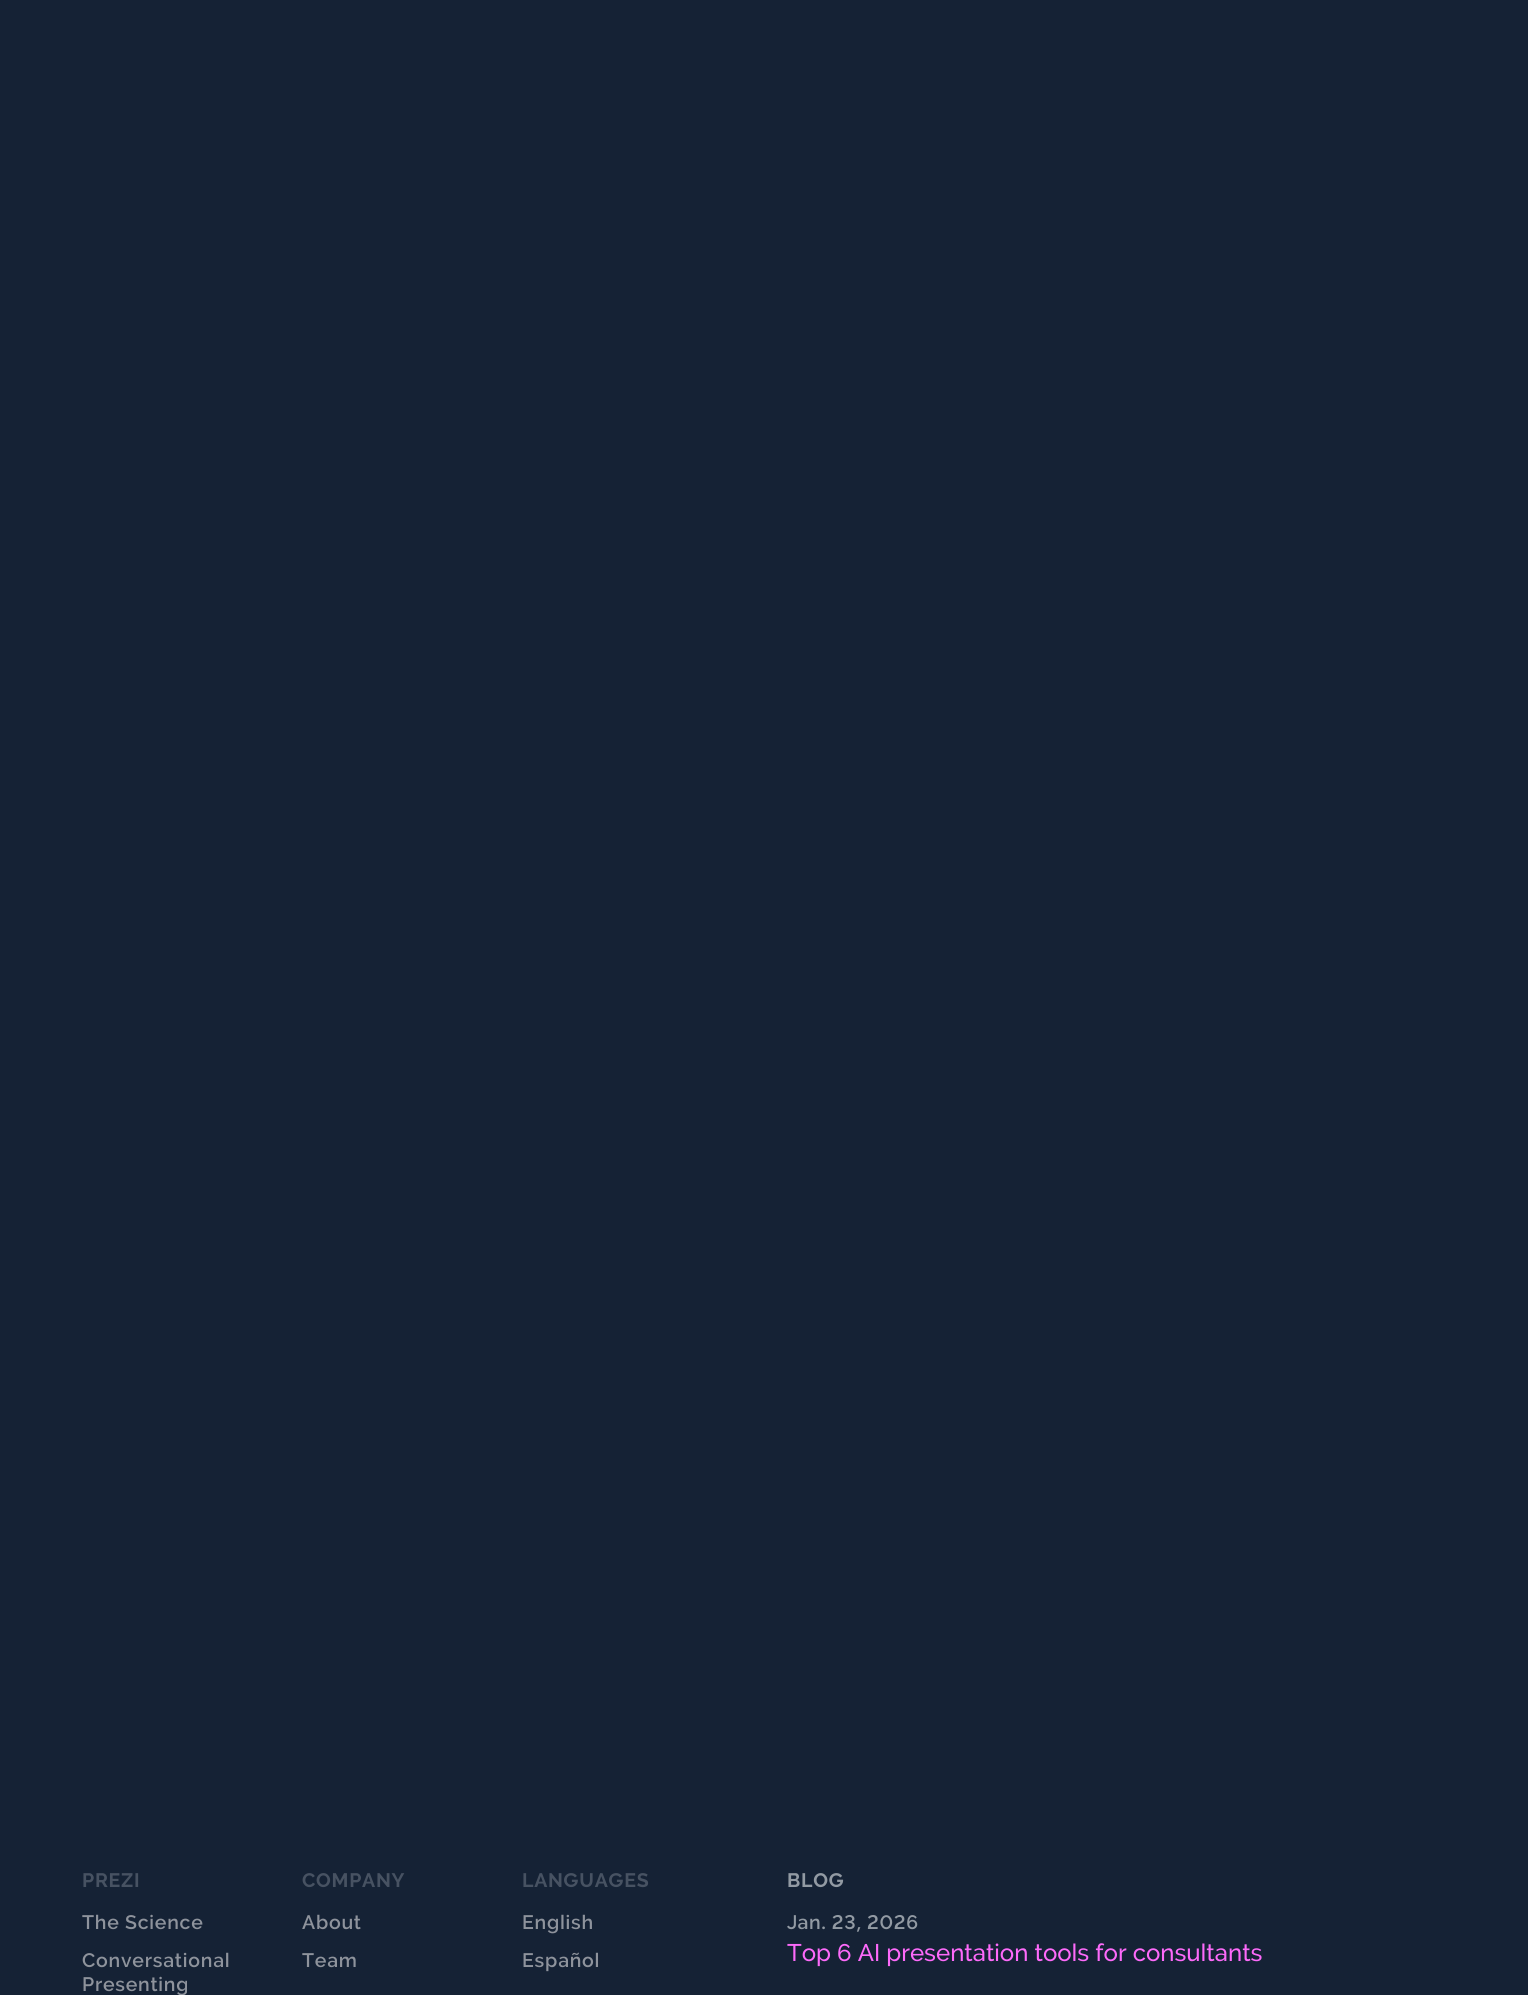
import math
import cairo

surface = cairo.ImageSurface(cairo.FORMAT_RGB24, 1528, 1995)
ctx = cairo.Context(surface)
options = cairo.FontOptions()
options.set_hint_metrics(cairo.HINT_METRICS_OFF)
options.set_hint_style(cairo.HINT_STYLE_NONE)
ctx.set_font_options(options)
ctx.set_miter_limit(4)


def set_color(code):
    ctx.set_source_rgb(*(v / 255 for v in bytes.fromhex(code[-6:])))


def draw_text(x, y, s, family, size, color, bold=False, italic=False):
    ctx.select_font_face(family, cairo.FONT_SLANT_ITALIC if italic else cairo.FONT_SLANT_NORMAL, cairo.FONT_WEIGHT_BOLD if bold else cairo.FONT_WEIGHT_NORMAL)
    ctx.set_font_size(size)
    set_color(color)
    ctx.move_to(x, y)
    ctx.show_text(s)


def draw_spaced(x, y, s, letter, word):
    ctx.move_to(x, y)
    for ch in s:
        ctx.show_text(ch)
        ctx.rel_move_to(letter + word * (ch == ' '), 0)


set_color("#152235")
ctx.paint()
ctx.select_font_face("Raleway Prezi", cairo.FONT_SLANT_NORMAL, cairo.FONT_WEIGHT_BOLD)
ctx.set_font_size(19.5)
set_color("#475262")
draw_spaced(82, 1887, "PREZI", 0.75, 0)
ctx.select_font_face("Raleway Prezi SemiBold")
set_color("#8e939c")
draw_spaced(82, 1929, "The Science", 0.75, 0)
draw_spaced(82, 1967, "Conversational", 0.75, 0)
draw_spaced(82, 1991, "Presenting", 0.75, 0)
ctx.select_font_face("Raleway Prezi", cairo.FONT_SLANT_NORMAL, cairo.FONT_WEIGHT_BOLD)
set_color("#475262")
draw_spaced(302, 1887, "COMPANY", 0.75, 0)
ctx.select_font_face("Raleway Prezi SemiBold")
set_color("#8e939c")
draw_spaced(302, 1929, "About", 0.75, 0)
draw_spaced(302, 1967, "Team", 0.75, 0)
ctx.select_font_face("Raleway Prezi", cairo.FONT_SLANT_NORMAL, cairo.FONT_WEIGHT_BOLD)
set_color("#475262")
draw_spaced(522, 1887, "LANGUAGES", 0.75, 0)
ctx.select_font_face("Raleway Prezi SemiBold")
set_color("#8e939c")
draw_spaced(522, 1929, "English", 0.75, 0)
draw_spaced(522, 1967, "Español", 0.75, 0)
ctx.select_font_face("Raleway Prezi", cairo.FONT_SLANT_NORMAL, cairo.FONT_WEIGHT_BOLD)
set_color("#929aa3")
draw_spaced(787, 1887, "BLOG", 0.75, 0)
ctx.select_font_face("Raleway Prezi SemiBold")
draw_spaced(787, 1929, "Jan. 23, 2026", 0.75, 0)
draw_text(787, 1961, "Top 6 AI presentation tools for consultants", "Raleway Prezi Medium", 24, "#fd6afa")
surface.write_to_png("output.png")
